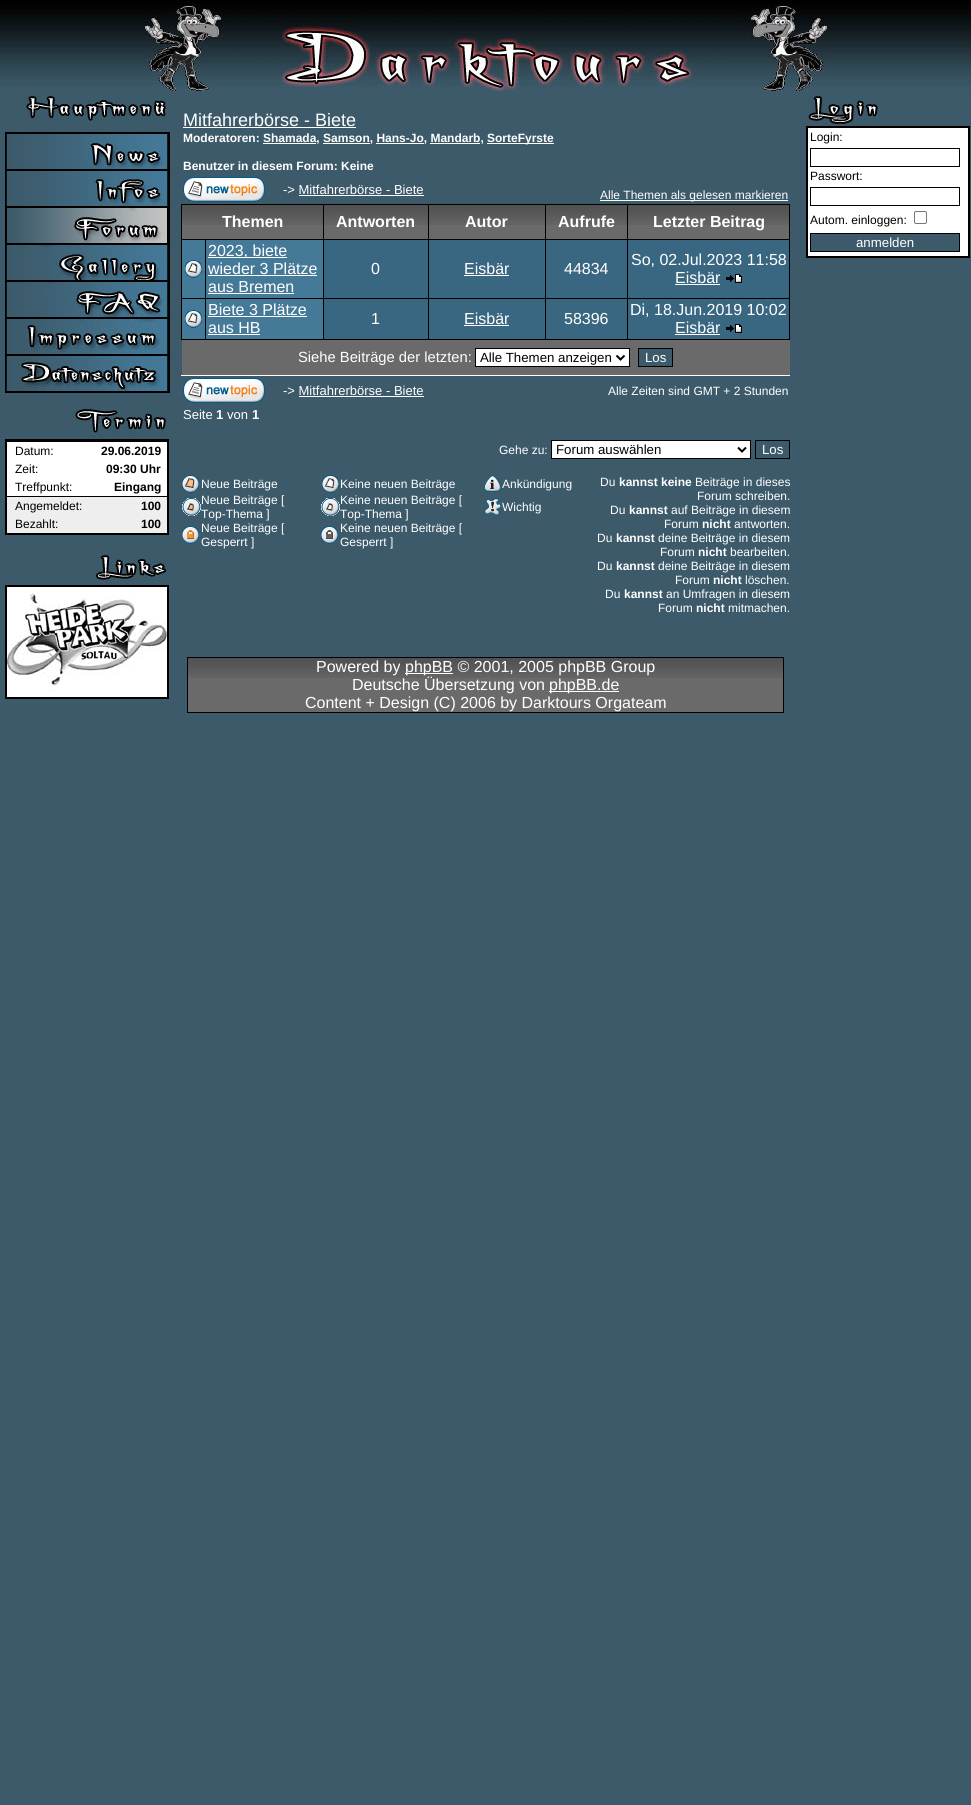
import math
import cairo

surface = cairo.ImageSurface(cairo.FORMAT_RGB24, 971, 1805)
ctx = cairo.Context(surface)
options = cairo.FontOptions()
options.set_hint_metrics(cairo.HINT_METRICS_OFF)
options.set_hint_style(cairo.HINT_STYLE_NONE)
ctx.set_font_options(options)
ctx.set_miter_limit(4)


def set_color(code):
    ctx.set_source_rgb(*(v / 255 for v in bytes.fromhex(code[-6:])))


def draw_text(x, y, s, family, size, color, bold=False, italic=False):
    ctx.select_font_face(family, cairo.FONT_SLANT_ITALIC if italic else cairo.FONT_SLANT_NORMAL, cairo.FONT_WEIGHT_BOLD if bold else cairo.FONT_WEIGHT_NORMAL)
    ctx.set_font_size(size)
    set_color(color)
    ctx.move_to(x, y)
    ctx.show_text(s)


def fill_rect(x, y, w, h, color):
    set_color(color)
    ctx.rectangle(x, y, w, h)
    ctx.fill()


def rounded_rect(x, y, w, h, r):
    ctx.new_sub_path()
    for i, (u, v) in enumerate([(x + w - r, y + h - r), (x + r, y + h - r), (x + r, y + r), (x + w - r, y + r)]):
        ctx.arc(u, v, r, i * math.pi / 2, (i + 1) * math.pi / 2)
    ctx.close_path()


def draw_image(path, x, y, w, h):
    ctx.save()
    ctx.set_source_surface(cairo.ImageSurface.create_from_png(path), x, y)
    ctx.rectangle(x, y, w, h)
    ctx.fill()
    ctx.restore()


set_color("#3c5a6a")
ctx.paint()
draw_image("assets/img1.png", 0, 0, 971, 91)
draw_image("assets/img2.png", 145, 0, 682, 91)
draw_text(183, 126, "Mitfahrerbörse - Biete", "Liberation Sans", 18, "#ffffff")
fill_rect(183, 127, 173, 1, "#ffffff")
draw_text(183, 142, "Moderatoren: Shamada, Samson, Hans-Jo, Mandarb,", "Liberation Sans", 12, "#ffffff", bold=True)
fill_rect(263, 143, 53, 1, "#ffffff")
fill_rect(323, 143, 47, 1, "#ffffff")
fill_rect(376, 143, 48, 1, "#ffffff")
fill_rect(430, 143, 50, 1, "#ffffff")
fill_rect(487, 143, 67, 1, "#ffffff")
draw_text(487, 142, "SorteFyrste", "Liberation Sans", 12, "#ffffff", bold=True)
draw_text(183, 170, "Benutzer in diesem Forum: Keine", "Liberation Sans", 12, "#ffffff", bold=True)
draw_image("assets/img3.png", 183, 177, 82, 25)
draw_text(283, 194, "-> Mitfahrerbörse - Biete", "Liberation Sans", 13, "#ffffff")
fill_rect(299, 195, 125, 1, "#ffffff")
fill_rect(600, 200, 188, 1, "#ffffff")
draw_text(600, 199, "Alle Themen als gelesen markieren", "Liberation Sans", 12, "#ffffff")
fill_rect(182, 225, 141, 14, "#6a6a6a")
draw_image("assets/img4.png", 182, 205, 141, 20)
fill_rect(627, 204, 163, 1, "#000000")
fill_rect(627, 239, 163, 1, "#000000")
fill_rect(627, 298, 163, 1, "#000000")
fill_rect(789, 298, 1, 42, "#000000")
fill_rect(627, 339, 163, 1, "#000000")
fill_rect(627, 298, 1, 42, "#000000")
fill_rect(545, 298, 83, 1, "#000000")
fill_rect(627, 239, 1, 60, "#000000")
fill_rect(545, 239, 83, 1, "#000000")
fill_rect(627, 204, 1, 36, "#000000")
fill_rect(545, 204, 83, 1, "#000000")
fill_rect(545, 339, 83, 1, "#000000")
fill_rect(545, 298, 1, 42, "#000000")
fill_rect(428, 298, 118, 1, "#000000")
fill_rect(545, 239, 1, 60, "#000000")
fill_rect(428, 239, 118, 1, "#000000")
fill_rect(545, 204, 1, 36, "#000000")
fill_rect(428, 204, 118, 1, "#000000")
fill_rect(428, 339, 118, 1, "#000000")
fill_rect(428, 298, 1, 42, "#000000")
fill_rect(323, 298, 106, 1, "#000000")
fill_rect(428, 239, 1, 60, "#000000")
fill_rect(323, 239, 106, 1, "#000000")
fill_rect(428, 204, 1, 36, "#000000")
fill_rect(323, 204, 106, 1, "#000000")
fill_rect(323, 339, 106, 1, "#000000")
fill_rect(323, 298, 1, 42, "#000000")
fill_rect(205, 298, 119, 1, "#000000")
fill_rect(323, 239, 1, 60, "#000000")
fill_rect(205, 239, 119, 1, "#000000")
fill_rect(323, 204, 1, 36, "#000000")
fill_rect(181, 204, 143, 1, "#000000")
fill_rect(205, 339, 119, 1, "#000000")
fill_rect(205, 298, 1, 42, "#000000")
fill_rect(181, 298, 25, 1, "#000000")
fill_rect(205, 239, 1, 60, "#000000")
fill_rect(181, 239, 25, 1, "#000000")
fill_rect(181, 339, 25, 1, "#000000")
fill_rect(181, 298, 1, 42, "#000000")
fill_rect(181, 239, 1, 60, "#000000")
fill_rect(181, 204, 1, 36, "#000000")
draw_text(222, 227, "Themen", "Liberation Sans", 16, "#ffffff", bold=True)
fill_rect(324, 225, 104, 14, "#6a6a6a")
draw_image("assets/img5.png", 324, 205, 104, 20)
draw_text(336, 227, "Antworten", "Liberation Sans", 16, "#ffffff", bold=True)
fill_rect(429, 225, 116, 14, "#6a6a6a")
draw_image("assets/img6.png", 429, 205, 116, 20)
draw_text(465, 227, "Autor", "Liberation Sans", 16, "#ffffff", bold=True)
fill_rect(546, 225, 81, 14, "#6a6a6a")
draw_image("assets/img7.png", 546, 205, 81, 20)
draw_text(558, 227, "Aufrufe", "Liberation Sans", 16, "#ffffff", bold=True)
fill_rect(628, 225, 161, 14, "#6a6a6a")
draw_image("assets/img8.png", 628, 205, 161, 20)
fill_rect(789, 239, 1, 60, "#000000")
fill_rect(789, 204, 1, 36, "#000000")
draw_text(653, 227, "Letzter Beitrag", "Liberation Sans", 16, "#ffffff", bold=True)
fill_rect(182, 240, 23, 58, "#447998")
draw_image("assets/img9.png", 185, 260, 17, 18)
fill_rect(206, 240, 117, 58, "#447998")
fill_rect(208, 257, 79, 1, "#ffffff")
draw_text(208, 256, "2023, biete", "Liberation Sans", 16, "#ffffff")
draw_text(208, 274, "wieder 3 Plätze", "Liberation Sans", 16, "#ffffff")
fill_rect(208, 275, 109, 1, "#ffffff")
draw_text(208, 292, "aus Bremen", "Liberation Sans", 16, "#ffffff")
fill_rect(208, 293, 86, 1, "#ffffff")
fill_rect(324, 240, 104, 58, "#396680")
draw_text(371, 274, "0", "Liberation Sans", 16, "#ffffff")
fill_rect(429, 240, 116, 58, "#396680")
draw_text(464, 274, "Eisbär", "Liberation Sans", 16, "#ffffff")
fill_rect(464, 275, 45, 1, "#ffffff")
fill_rect(546, 240, 81, 58, "#396680")
draw_text(564, 274, "44834", "Liberation Sans", 16, "#ffffff")
fill_rect(628, 240, 161, 58, "#396680")
draw_text(631, 265, "So, 02.Jul.2023 11:58", "Liberation Sans", 16, "#ffffff")
draw_text(675, 283, "Eisbär", "Liberation Sans", 16, "#ffffff")
fill_rect(675, 284, 45, 1, "#ffffff")
draw_image("assets/img10.png", 726, 274, 16, 9)
fill_rect(182, 299, 23, 40, "#447998")
draw_image("assets/img9.png", 185, 310, 17, 18)
fill_rect(206, 299, 117, 40, "#447998")
draw_text(208, 315, "Biete 3 Plätze", "Liberation Sans", 16, "#ffffff")
fill_rect(208, 316, 99, 1, "#ffffff")
draw_text(208, 333, "aus HB", "Liberation Sans", 16, "#ffffff")
fill_rect(208, 334, 52, 1, "#ffffff")
fill_rect(324, 299, 104, 40, "#396680")
draw_text(371, 324, "1", "Liberation Sans", 16, "#ffffff")
fill_rect(429, 299, 116, 40, "#396680")
draw_text(464, 324, "Eisbär", "Liberation Sans", 16, "#ffffff")
fill_rect(464, 325, 45, 1, "#ffffff")
fill_rect(546, 299, 81, 40, "#396680")
draw_text(564, 324, "58396", "Liberation Sans", 16, "#ffffff")
fill_rect(628, 299, 161, 40, "#396680")
draw_text(630, 315, "Di, 18.Jun.2019 10:02", "Liberation Sans", 16, "#ffffff")
draw_text(675, 333, "Eisbär", "Liberation Sans", 16, "#ffffff")
fill_rect(675, 334, 45, 1, "#ffffff")
draw_image("assets/img10.png", 726, 324, 16, 9)
fill_rect(182, 340, 608, 35, "#6a6a6a")
fill_rect(181, 375, 609, 1, "#ffffff")
draw_text(298, 362, "Siehe Beiträge der letzten:", "Liberation Sans", 14.75, "#ffffff")
ctx.rectangle(475.5, 348.5, 154, 18)
ctx.fill_preserve()
set_color("#000000")
ctx.set_line_width(1)
ctx.stroke()
ctx.new_path()
ctx.move_to(616.5, 355.5)
ctx.line_to(620.5, 359.5)
ctx.line_to(624.5, 355.5)
ctx.set_line_width(2)
ctx.stroke()
draw_text(480, 362, "Alle Themen anzeigen", "Liberation Sans", 13.25, "#000000")
set_color("#3c5a6a")
ctx.rectangle(638.5, 348.5, 34, 18)
ctx.fill_preserve()
set_color("#000000")
ctx.set_line_width(1)
ctx.stroke()
draw_text(645, 362, "Los", "Liberation Sans", 13.25, "#ffffff")
draw_image("assets/img3.png", 183, 378, 82, 25)
draw_text(283, 395, "-> Mitfahrerbörse - Biete", "Liberation Sans", 13, "#ffffff")
fill_rect(299, 396, 125, 1, "#ffffff")
draw_text(608, 395, "Alle Zeiten sind GMT + 2 Stunden", "Liberation Sans", 12, "#ffffff")
draw_text(183, 419, "Seite", "Liberation Sans", 13, "#ffffff")
draw_text(216, 419, "1", "Liberation Sans", 13, "#ffffff", bold=True)
draw_text(227, 419, "von", "Liberation Sans", 13, "#ffffff")
draw_text(252, 419, "1", "Liberation Sans", 13, "#ffffff", bold=True)
draw_text(499, 454, "Gehe zu:", "Liberation Sans", 12, "#ffffff")
ctx.rectangle(551.5, 440.5, 199, 18)
ctx.fill_preserve()
set_color("#000000")
ctx.stroke()
ctx.new_path()
ctx.move_to(738, 447.5)
ctx.line_to(742, 451.5)
ctx.line_to(746, 447.5)
ctx.set_line_width(2)
ctx.stroke()
draw_text(556, 454, "Forum auswählen", "Liberation Sans", 13.25, "#000000")
ctx.rectangle(755.5, 440.5, 34, 18)
ctx.set_line_width(1)
ctx.stroke()
draw_text(762, 454, "Los", "Liberation Sans", 13.25, "#ffffff")
draw_image("assets/img11.png", 182, 475, 17, 18)
draw_text(201, 488, "Neue Beiträge", "Liberation Sans", 12, "#ffffff")
draw_image("assets/img12.png", 322, 475, 17, 18)
draw_text(340, 488, "Keine neuen Beiträge", "Liberation Sans", 12, "#ffffff")
draw_image("assets/img13.png", 484, 475, 17, 17)
draw_text(502, 488, "Ankündigung", "Liberation Sans", 12, "#ffffff")
draw_image("assets/img14.png", 182, 498, 19, 18)
draw_text(201, 504, "Neue Beiträge [", "Liberation Sans", 12, "#ffffff")
draw_text(201, 518, "Top-Thema ]", "Liberation Sans", 12, "#ffffff")
draw_image("assets/img15.png", 321, 498, 19, 18)
draw_text(340, 504, "Keine neuen Beiträge [", "Liberation Sans", 12, "#ffffff")
draw_text(340, 518, "Top-Thema ]", "Liberation Sans", 12, "#ffffff")
draw_image("assets/img16.png", 484, 498, 17, 18)
draw_text(502, 511, "Wichtig", "Liberation Sans", 12, "#ffffff")
draw_image("assets/img17.png", 182, 526, 17, 18)
draw_text(201, 532, "Neue Beiträge [", "Liberation Sans", 12, "#ffffff")
draw_text(201, 546, "Gesperrt ]", "Liberation Sans", 12, "#ffffff")
draw_image("assets/img18.png", 321, 526, 17, 18)
draw_text(340, 532, "Keine neuen Beiträge [", "Liberation Sans", 12, "#ffffff")
draw_text(340, 546, "Gesperrt ]", "Liberation Sans", 12, "#ffffff")
draw_text(600, 486, "Du", "Liberation Sans", 12, "#ffffff")
draw_text(619, 486, "kannst keine", "Liberation Sans", 12, "#ffffff", bold=True)
draw_text(695, 486, "Beiträge in dieses", "Liberation Sans", 12, "#ffffff")
draw_text(697, 500, "Forum schreiben.", "Liberation Sans", 12, "#ffffff")
draw_text(610, 514, "Du", "Liberation Sans", 12, "#ffffff")
draw_text(629, 514, "kannst", "Liberation Sans", 12, "#ffffff", bold=True)
draw_text(671, 514, "auf Beiträge in diesem", "Liberation Sans", 12, "#ffffff")
draw_text(664, 528, "Forum", "Liberation Sans", 12, "#ffffff")
draw_text(702, 528, "nicht", "Liberation Sans", 12, "#ffffff", bold=True)
draw_text(734, 528, "antworten.", "Liberation Sans", 12, "#ffffff")
draw_text(597, 542, "Du", "Liberation Sans", 12, "#ffffff")
draw_text(616, 542, "kannst", "Liberation Sans", 12, "#ffffff", bold=True)
draw_text(658, 542, "deine Beiträge in diesem", "Liberation Sans", 12, "#ffffff")
draw_text(660, 556, "Forum", "Liberation Sans", 12, "#ffffff")
draw_text(698, 556, "nicht", "Liberation Sans", 12, "#ffffff", bold=True)
draw_text(730, 556, "bearbeiten.", "Liberation Sans", 12, "#ffffff")
draw_text(597, 570, "Du", "Liberation Sans", 12, "#ffffff")
draw_text(616, 570, "kannst", "Liberation Sans", 12, "#ffffff", bold=True)
draw_text(658, 570, "deine Beiträge in diesem", "Liberation Sans", 12, "#ffffff")
draw_text(675, 584, "Forum", "Liberation Sans", 12, "#ffffff")
draw_text(713, 584, "nicht", "Liberation Sans", 12, "#ffffff", bold=True)
draw_text(745, 584, "löschen.", "Liberation Sans", 12, "#ffffff")
draw_text(605, 598, "Du", "Liberation Sans", 12, "#ffffff")
draw_text(624, 598, "kannst", "Liberation Sans", 12, "#ffffff", bold=True)
draw_text(666, 598, "an Umfragen in diesem", "Liberation Sans", 12, "#ffffff")
draw_text(658, 612, "Forum", "Liberation Sans", 12, "#ffffff")
draw_text(696, 612, "nicht", "Liberation Sans", 12, "#ffffff", bold=True)
draw_text(728, 612, "mitmachen.", "Liberation Sans", 12, "#ffffff")
fill_rect(188, 678, 595, 34, "#6a6a6a")
draw_image("assets/img19.png", 188, 658, 595, 20)
ctx.rectangle(187.5, 657.5, 596, 55)
set_color("#000000")
ctx.stroke()
draw_text(316, 672, "Powered by", "Liberation Sans", 16, "#ffffff")
fill_rect(405, 673, 48, 1, "#ffffff")
draw_text(405, 672, "phpBB © 2001, 2005 phpBB Group", "Liberation Sans", 16, "#ffffff")
draw_text(352, 690, "Deutsche Übersetzung von", "Liberation Sans", 16, "#ffffff")
fill_rect(549, 691, 70, 1, "#ffffff")
draw_text(549, 690, "phpBB.de", "Liberation Sans", 16, "#ffffff")
draw_text(305, 708, "Content + Design (C) 2006 by Darktours Orgateam", "Liberation Sans", 16, "#ffffff")
draw_image("assets/img20.png", 808, 92, 72, 32)
ctx.rectangle(807, 127, 162, 130)
ctx.fill_preserve()
set_color("#000000")
ctx.set_line_width(2)
ctx.stroke()
draw_text(810, 141, "Login:", "Liberation Sans", 12, "#000000")
ctx.rectangle(810.5, 148.5, 149, 18)
ctx.set_line_width(1)
ctx.stroke()
draw_text(810, 180, "Passwort:", "Liberation Sans", 12, "#000000")
ctx.rectangle(810.5, 187.5, 149, 18)
ctx.stroke()
draw_text(810, 224, "Autom. einloggen:", "Liberation Sans", 12, "#000000")
rounded_rect(914.5, 211.5, 12, 12, 1.5)
set_color("#767676")
ctx.stroke()
set_color("#3c5a6a")
ctx.rectangle(810.5, 233.5, 149, 18)
ctx.fill_preserve()
set_color("#000000")
ctx.stroke()
draw_text(856, 247, "anmelden", "Liberation Sans", 13.25, "#ffffff")
draw_image("assets/img21.png", 24, 92, 144, 32)
fill_rect(5, 132, 165, 2, "#000000")
draw_image("assets/img22.png", 5, 134, 165, 35)
fill_rect(5, 169, 165, 2, "#000000")
draw_image("assets/img23.png", 5, 171, 165, 35)
fill_rect(5, 206, 165, 2, "#000000")
draw_image("assets/img24.png", 5, 208, 165, 35)
fill_rect(5, 243, 165, 2, "#000000")
draw_image("assets/img25.png", 5, 245, 165, 35)
fill_rect(5, 280, 165, 2, "#000000")
draw_image("assets/img26.png", 5, 282, 165, 35)
fill_rect(5, 317, 165, 2, "#000000")
draw_image("assets/img27.png", 5, 319, 165, 35)
fill_rect(5, 354, 165, 2, "#000000")
draw_image("assets/img28.png", 5, 356, 165, 35)
fill_rect(5, 391, 165, 2, "#000000")
draw_image("assets/img29.png", 72, 405, 96, 32)
fill_rect(7, 442, 160, 54, "#ffffff")
ctx.rectangle(6, 440, 162, 94)
set_color("#000000")
ctx.set_line_width(2)
ctx.stroke()
fill_rect(7, 441, 160, 1, "#000000")
draw_text(15, 455, "Datum:", "Liberation Sans", 12, "#000000")
draw_text(101, 455, "29.06.2019", "Liberation Sans", 12, "#000000", bold=True)
draw_text(15, 473, "Zeit:", "Liberation Sans", 12, "#000000")
draw_text(106, 473, "09:30 Uhr", "Liberation Sans", 12, "#000000", bold=True)
draw_text(15, 491, "Treffpunkt:", "Liberation Sans", 12, "#000000")
draw_text(114, 491, "Eingang", "Liberation Sans", 12, "#000000", bold=True)
fill_rect(7, 497, 160, 36, "#eeeeee")
fill_rect(7, 496, 160, 1, "#000000")
draw_text(15, 510, "Angemeldet:", "Liberation Sans", 12, "#000000")
draw_text(141, 510, "100", "Liberation Sans", 12, "#000000", bold=True)
draw_text(15, 528, "Bezahlt:", "Liberation Sans", 12, "#000000")
draw_text(141, 528, "100", "Liberation Sans", 12, "#000000", bold=True)
draw_image("assets/img30.png", 96, 551, 72, 32)
draw_image("assets/img31.png", 7, 587, 160, 110)
ctx.rectangle(6, 586, 162, 112)
ctx.stroke()
surface.write_to_png("output.png")
